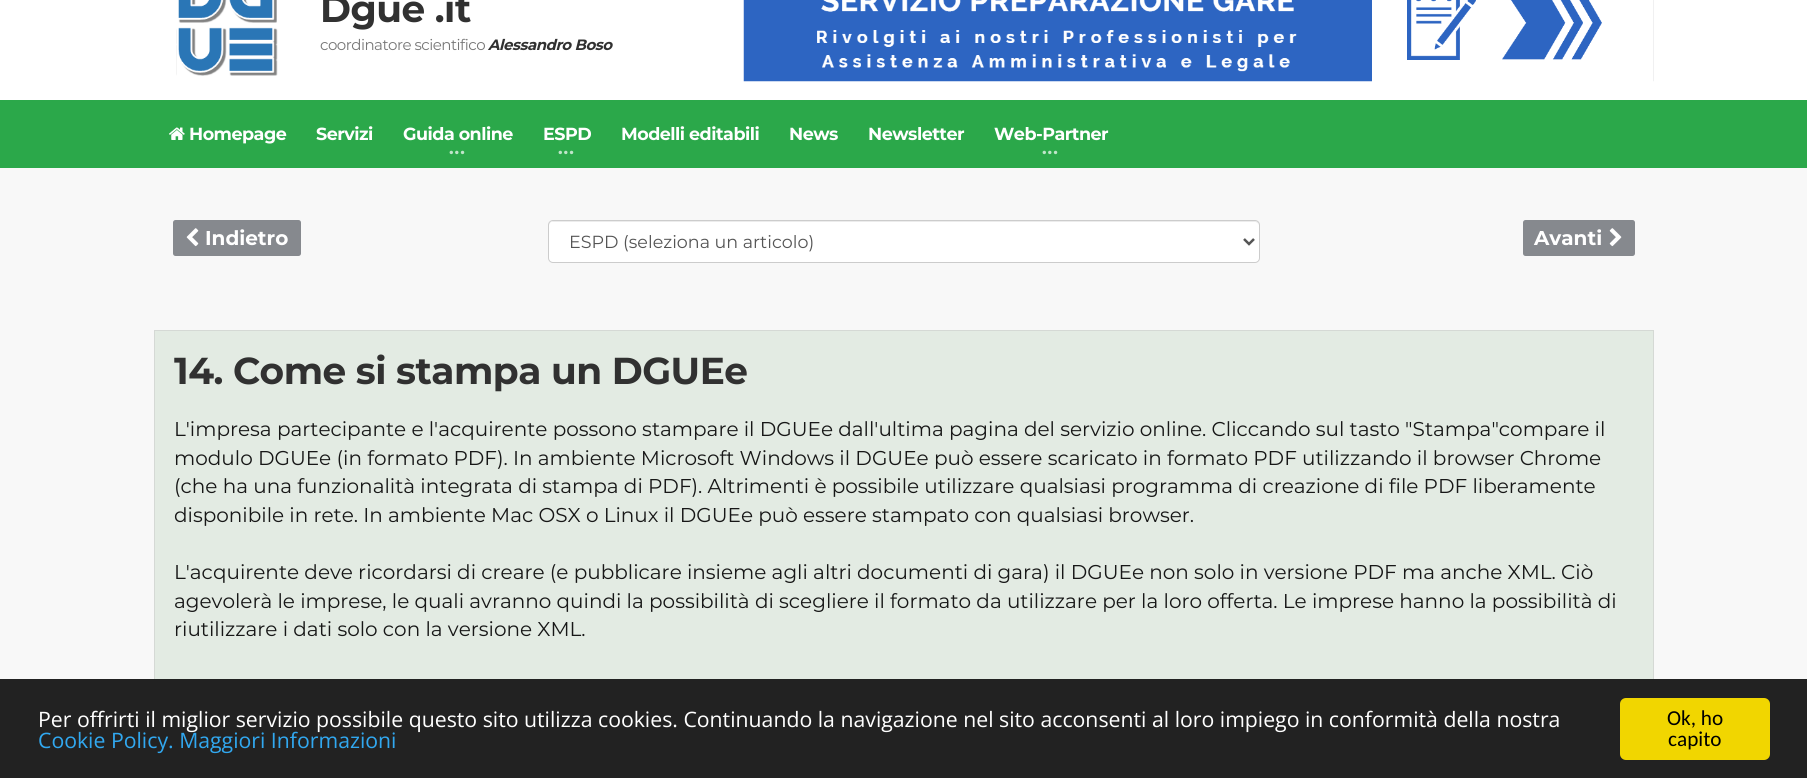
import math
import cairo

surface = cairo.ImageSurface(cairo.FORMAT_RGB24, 1807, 778)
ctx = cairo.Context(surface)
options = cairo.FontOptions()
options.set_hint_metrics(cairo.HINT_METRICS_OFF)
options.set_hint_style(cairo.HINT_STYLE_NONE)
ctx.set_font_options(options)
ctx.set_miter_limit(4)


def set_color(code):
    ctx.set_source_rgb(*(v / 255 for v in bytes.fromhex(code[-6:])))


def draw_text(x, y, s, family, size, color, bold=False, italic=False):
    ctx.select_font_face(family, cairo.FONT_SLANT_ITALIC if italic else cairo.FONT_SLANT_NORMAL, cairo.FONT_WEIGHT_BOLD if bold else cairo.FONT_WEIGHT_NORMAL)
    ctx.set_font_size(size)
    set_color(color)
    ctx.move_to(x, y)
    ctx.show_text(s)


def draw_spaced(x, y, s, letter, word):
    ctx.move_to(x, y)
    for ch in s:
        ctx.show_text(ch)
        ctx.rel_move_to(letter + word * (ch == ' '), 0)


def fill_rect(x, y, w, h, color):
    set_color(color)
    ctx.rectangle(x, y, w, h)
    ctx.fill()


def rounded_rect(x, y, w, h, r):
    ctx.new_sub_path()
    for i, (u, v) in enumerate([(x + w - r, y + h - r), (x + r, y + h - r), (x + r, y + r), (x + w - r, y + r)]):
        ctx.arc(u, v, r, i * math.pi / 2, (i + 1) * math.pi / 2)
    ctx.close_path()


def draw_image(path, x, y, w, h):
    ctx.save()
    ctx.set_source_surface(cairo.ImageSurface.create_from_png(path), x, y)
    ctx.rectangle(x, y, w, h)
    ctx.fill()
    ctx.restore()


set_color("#f8f8f8")
ctx.paint()
fill_rect(0, 0, 1807, 100, "#ffffff")
draw_image("assets/img1.png", 176, 0, 102, 76)
ctx.select_font_face("Montserrat", cairo.FONT_SLANT_NORMAL, cairo.FONT_WEIGHT_BOLD)
ctx.set_font_size(37.5)
set_color("#313131")
draw_spaced(320, 22, "Dgue .it", -0.5, 0)
ctx.select_font_face("Montserrat")
ctx.set_font_size(15)
set_color("#777777")
draw_spaced(320, 50, "coordinatore scientifico", -0.5, 0)
ctx.select_font_face("Montserrat", cairo.FONT_SLANT_ITALIC, cairo.FONT_WEIGHT_BOLD)
set_color("#313131")
draw_spaced(488, 50, "Alessandro Boso", -0.5, 0)
draw_image("assets/img2.png", 743, 0, 911, 82)
fill_rect(0, 100, 1807, 68, "#2ba84a")
draw_image("assets/img3.png", 169, 127, 16, 13)
ctx.select_font_face("Montserrat", cairo.FONT_SLANT_NORMAL, cairo.FONT_WEIGHT_BOLD)
ctx.set_font_size(17.5)
set_color("#ffffff")
draw_spaced(189, 140, "Homepage", -0.5, 0)
draw_spaced(316, 140, "Servizi", -0.5, 0)
draw_spaced(403, 140, "Guida online", -0.5, 0)
set_color("#bfe5c9")
draw_spaced(449, 154, "...", 1, 0)
set_color("#ffffff")
draw_spaced(543, 140, "ESPD", -0.5, 0)
set_color("#bfe5c9")
draw_spaced(558, 154, "...", 1, 0)
set_color("#ffffff")
draw_spaced(621, 140, "Modelli editabili", -0.5, 0)
draw_spaced(789, 140, "News", -0.5, 0)
draw_spaced(868, 140, "Newsletter", -0.5, 0)
draw_spaced(994, 140, "Web-Partner", -0.5, 0)
set_color("#bfe5c9")
draw_spaced(1042, 154, "...", 1, 0)
set_color("#86898e")
rounded_rect(173, 220, 128, 36, 2.5)
ctx.fill()
draw_image("assets/img4.png", 186, 228, 13, 19)
draw_text(205, 245, "Indietro", "Montserrat", 20, "#ffffff", bold=True)
rounded_rect(548, 220, 712, 43, 5)
ctx.fill()
set_color("#ececec")
ctx.new_path()
ctx.move_to(552, 222)
ctx.line_to(1255, 222)
ctx.curve_to(1257, 222, 1259, 224, 1259, 226)
ctx.curve_to(1259, 223, 1258, 221, 1255, 221)
ctx.line_to(553, 221)
ctx.line_to(550, 222)
ctx.line_to(549, 223)
ctx.line_to(549, 226)
ctx.curve_to(549, 224, 550, 222, 552, 222)
ctx.close_path()
ctx.fill()
rounded_rect(548.5, 220.5, 711, 42, 4.5)
set_color("#cccccc")
ctx.set_line_width(1)
ctx.stroke()
ctx.new_path()
ctx.move_to(1244, 239)
ctx.line_to(1249, 244)
ctx.line_to(1254, 239)
set_color("#555555")
ctx.set_line_width(2.5)
ctx.stroke()
draw_text(569, 248, "ESPD (seleziona un articolo)", "Montserrat", 17.5, "#555555")
set_color("#86898e")
rounded_rect(1523, 220, 112, 36, 2.5)
ctx.fill()
draw_text(1534, 245, "Avanti", "Montserrat", 20, "#ffffff", bold=True)
draw_image("assets/img5.png", 1609, 228, 13, 19)
fill_rect(155, 331, 1498, 348, "#e3ebe3")
ctx.rectangle(154.5, 330.5, 1499, 419)
set_color("#d5d9d5")
ctx.set_line_width(1)
ctx.stroke()
ctx.set_font_size(37.5)
set_color("#313131")
draw_spaced(174, 384, "14. Come si stampa un DGUEe", -0.5, 0)
draw_text(174, 436, "L'impresa partecipante e l'acquirente possono stampare il DGUEe dall'ultima pagina del servizio online. Cliccando sul tasto \"Stampa\"compare il", "Montserrat", 20, "#171717")
draw_text(174, 465, "modulo DGUEe (in formato PDF). In ambiente Microsoft Windows il DGUEe può essere scaricato in formato PDF utilizzando il browser Chrome", "Montserrat", 20, "#171717")
draw_text(174, 493, "(che ha una funzionalità integrata di stampa di PDF). Altrimenti è possibile utilizzare qualsiasi programma di creazione di file PDF liberamente", "Montserrat", 20, "#171717")
draw_text(174, 522, "disponibile in rete. In ambiente Mac OSX o Linux il DGUEe può essere stampato con qualsiasi browser.", "Montserrat", 20, "#171717")
draw_text(174, 579, "L'acquirente deve ricordarsi di creare (e pubblicare insieme agli altri documenti di gara) il DGUEe non solo in versione PDF ma anche XML. Ciò", "Montserrat", 20, "#171717")
draw_text(174, 608, "agevolerà le imprese, le quali avranno quindi la possibilità di scegliere il formato da utilizzare per la loro offerta. Le imprese hanno la possibilità di", "Montserrat", 20, "#171717")
draw_text(174, 636, "riutilizzare i dati solo con la versione XML.", "Montserrat", 20, "#171717")
fill_rect(0, 679, 1807, 99, "#222222")
draw_text(38, 727, "Per offrirti il miglior servizio possibile questo sito utilizza cookies. Continuando la navigazione nel sito acconsenti al loro impiego in conformità della nostra", "Open Sans", 21.25, "#ffffff")
draw_text(38, 748, "Cookie Policy. Maggiori Informazioni", "Open Sans", 21.25, "#31a8f0")
set_color("#f1d600")
rounded_rect(1620, 698, 150, 62, 6)
ctx.fill()
draw_text(1667, 725, "Ok, ho", "Carlito", 21.25, "#000000")
draw_text(1668, 746, "capito", "Carlito", 21.25, "#000000")
surface.write_to_png("output.png")
